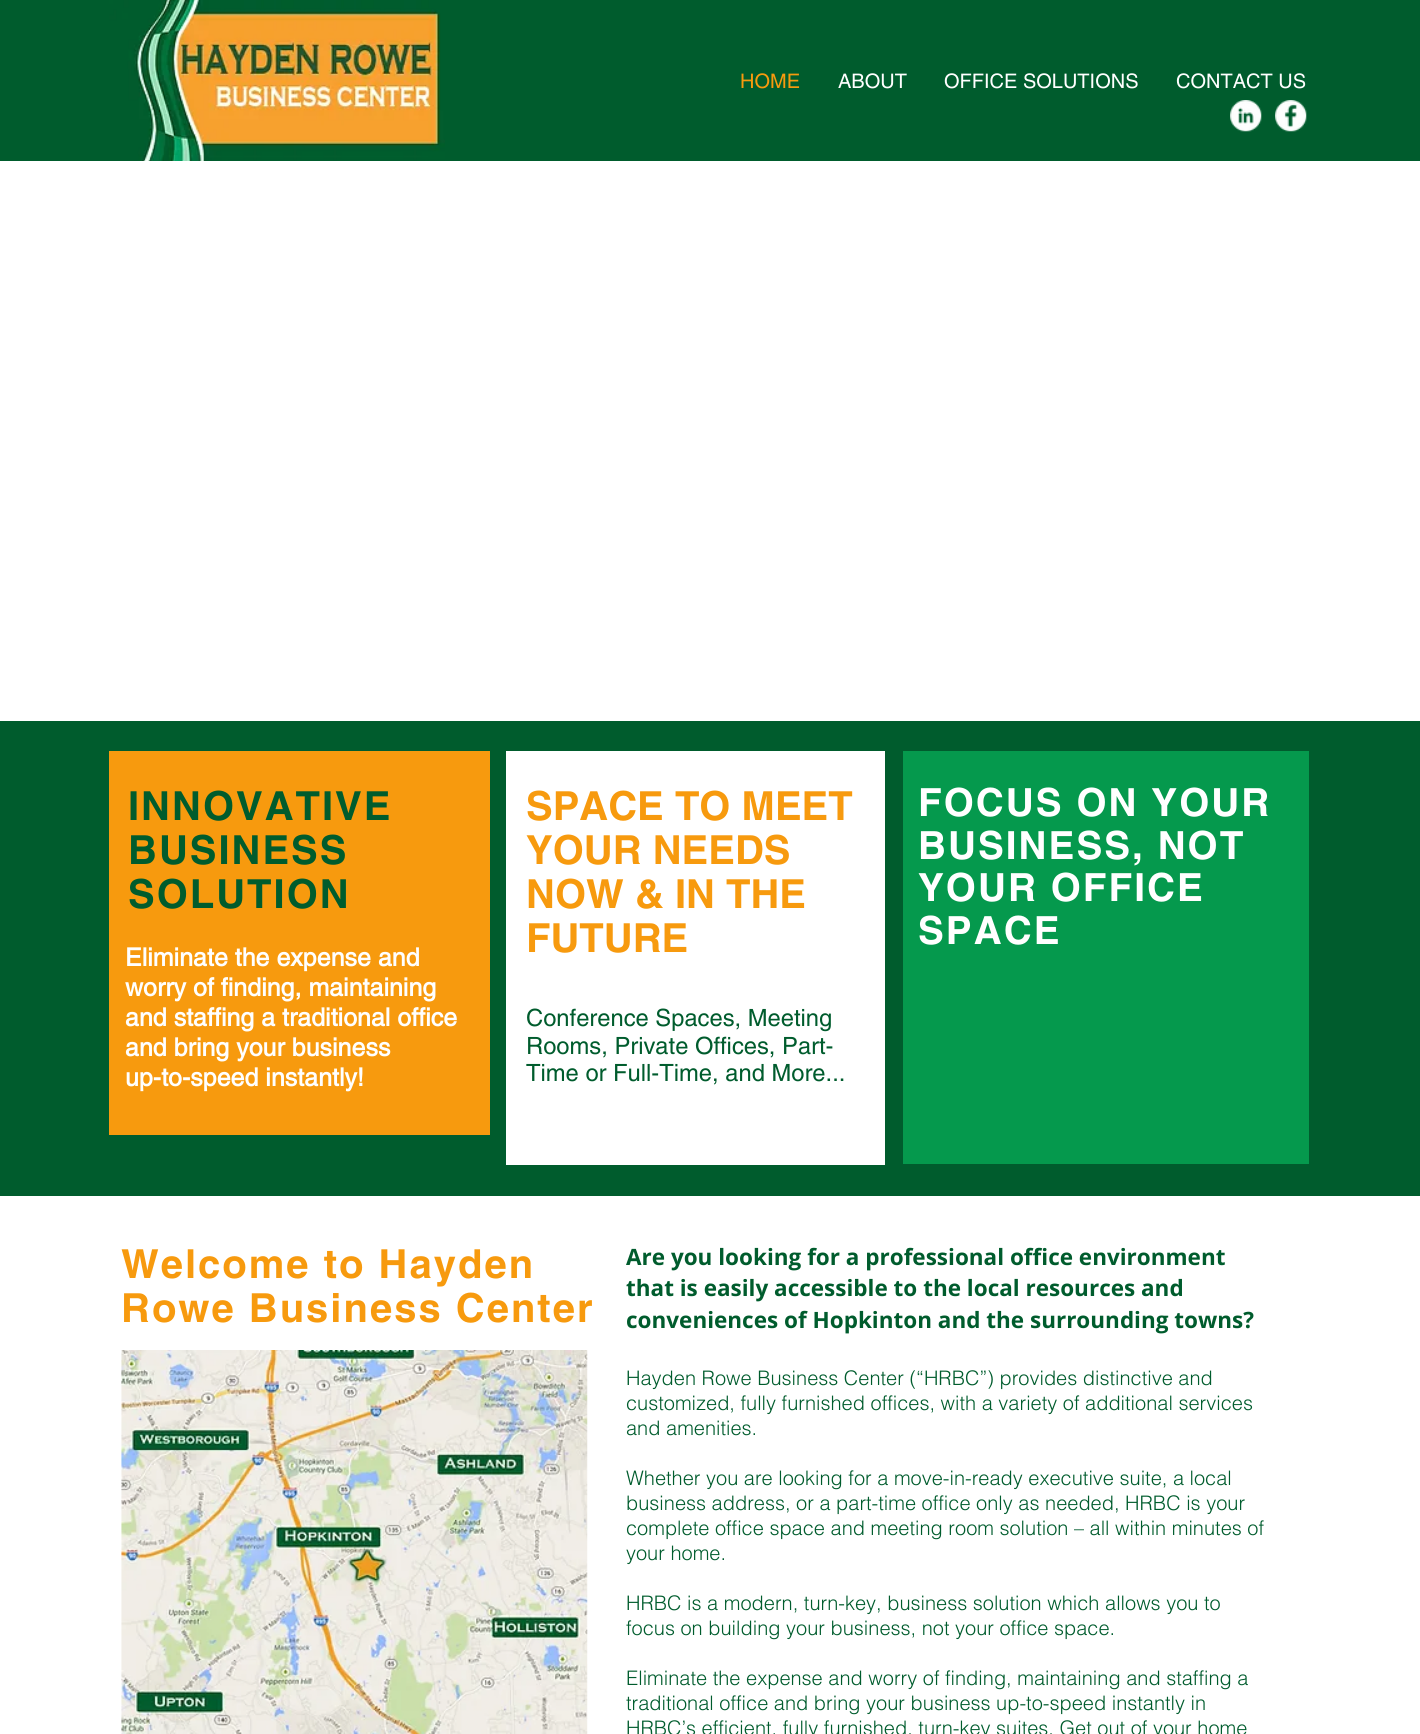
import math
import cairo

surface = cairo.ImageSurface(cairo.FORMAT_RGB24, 1420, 1734)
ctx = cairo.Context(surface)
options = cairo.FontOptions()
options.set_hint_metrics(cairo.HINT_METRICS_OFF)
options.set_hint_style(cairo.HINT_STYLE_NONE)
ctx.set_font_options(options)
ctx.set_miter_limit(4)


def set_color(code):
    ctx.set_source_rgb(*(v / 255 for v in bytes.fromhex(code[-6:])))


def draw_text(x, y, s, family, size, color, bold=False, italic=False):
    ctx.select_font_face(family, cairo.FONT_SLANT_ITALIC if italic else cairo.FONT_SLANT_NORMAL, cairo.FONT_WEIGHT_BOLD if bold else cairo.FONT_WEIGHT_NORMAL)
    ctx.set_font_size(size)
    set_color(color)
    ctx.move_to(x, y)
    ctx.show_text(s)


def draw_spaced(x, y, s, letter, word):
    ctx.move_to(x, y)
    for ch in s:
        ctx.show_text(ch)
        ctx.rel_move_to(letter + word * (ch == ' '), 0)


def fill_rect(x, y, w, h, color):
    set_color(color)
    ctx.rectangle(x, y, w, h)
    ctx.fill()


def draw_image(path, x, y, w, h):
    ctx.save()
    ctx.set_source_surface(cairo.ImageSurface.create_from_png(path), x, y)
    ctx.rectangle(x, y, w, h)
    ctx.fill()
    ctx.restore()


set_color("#ffffff")
ctx.paint()
fill_rect(0, 0, 1420, 161, "#005c2d")
draw_image("assets/img1.png", 109, 0, 336, 161)
draw_text(740, 88, "HOME", "helvetica", 20, "#f79a0e")
draw_text(838, 88, "ABOUT", "helvetica", 20, "#ffffff")
draw_text(944, 88, "OFFICE SOLUTIONS", "helvetica", 20, "#ffffff")
draw_text(1176, 88, "CONTACT US", "helvetica", 20, "#ffffff")
draw_image("assets/img2.png", 1230, 100, 32, 32)
draw_image("assets/img3.png", 1275, 100, 32, 32)
fill_rect(0, 721, 1420, 475, "#005c2d")
fill_rect(109, 751, 381, 384, "#f79a0e")
ctx.select_font_face("helvetica", cairo.FONT_SLANT_NORMAL, cairo.FONT_WEIGHT_BOLD)
ctx.set_font_size(40)
set_color("#005c2d")
draw_spaced(128, 820, "INNOVATIVE", 2, 0)
draw_spaced(128, 864, "BUSINESS", 2, 0)
draw_spaced(128, 908, "SOLUTION", 2, 0)
draw_text(125, 966, "Eliminate the expense and", "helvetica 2", 25, "#ffffff", bold=True)
draw_text(125, 996, "worry of finding, maintaining", "helvetica 2", 25, "#ffffff", bold=True)
draw_text(125, 1026, "and staffing a traditional office", "helvetica 2", 25, "#ffffff", bold=True)
draw_text(125, 1056, "and bring your business", "helvetica 2", 25, "#ffffff", bold=True)
draw_text(125, 1086, "up-to-speed instantly!", "helvetica 2", 25, "#ffffff", bold=True)
fill_rect(506, 751, 379, 414, "#ffffff")
draw_text(526, 820, "SPACE TO MEET", "helvetica", 40, "#f79a0e", bold=True)
draw_text(526, 864, "YOUR NEEDS", "helvetica", 40, "#f79a0e", bold=True)
draw_text(526, 908, "NOW & IN THE", "helvetica", 40, "#f79a0e", bold=True)
draw_text(526, 952, "FUTURE", "helvetica", 40, "#f79a0e", bold=True)
draw_text(526, 1026, "Conference Spaces, Meeting", "helvetica", 23.75, "#005c2d")
draw_text(526, 1054, "Rooms, Private Offices, Part-", "helvetica", 23.75, "#005c2d")
draw_text(526, 1081, "Time or Full-Time, and More...", "helvetica", 23.75, "#005c2d")
fill_rect(903, 751, 406, 413, "#05994d")
ctx.select_font_face("helvetica", cairo.FONT_SLANT_NORMAL, cairo.FONT_WEIGHT_BOLD)
ctx.set_font_size(38.75)
set_color("#ffffff")
draw_spaced(918, 816, "FOCUS ON YOUR", 2, 0)
draw_spaced(918, 859, "BUSINESS, NOT", 2, 0)
draw_spaced(918, 901, "YOUR OFFICE", 2, 0)
draw_spaced(918, 944, "SPACE", 2, 0)
ctx.set_font_size(40)
set_color("#f79a0e")
draw_spaced(121, 1278, "Welcome to Hayden", 2, 0)
draw_spaced(121, 1322, "Rowe Business Center", 2, 0)
draw_text(626, 1265, "Are you looking for a professional office environment", "Open Sans", 22.5, "#005c2d", bold=True)
draw_text(626, 1296, "that is easily accessible to the local resources and", "Open Sans", 22.5, "#005c2d", bold=True)
draw_text(626, 1328, "conveniences of Hopkinton and the surrounding towns?", "Open Sans", 22.5, "#005c2d", bold=True)
draw_text(626, 1385, "Hayden Rowe Business Center (“HRBC”) provides distinctive and", "helvetica Light", 20, "#005c2d")
draw_text(626, 1410, "customized, fully furnished offices, with a variety of additional services", "helvetica Light", 20, "#005c2d")
draw_text(626, 1435, "and amenities.", "helvetica Light", 20, "#005c2d")
draw_text(626, 1485, "Whether you are looking for a move-in-ready executive suite, a local", "helvetica Light", 20, "#005c2d")
draw_text(626, 1510, "business address, or a part-time office only as needed, HRBC is your", "helvetica Light", 20, "#005c2d")
draw_text(626, 1535, "complete office space and meeting room solution – all within minutes of", "helvetica Light", 20, "#005c2d")
draw_text(626, 1560, "your home.", "helvetica Light", 20, "#005c2d")
draw_text(626, 1610, "HRBC is a modern, turn-key, business solution which allows you to", "helvetica Light", 20, "#005c2d")
draw_text(626, 1635, "focus on building your business, not your office space.", "helvetica Light", 20, "#005c2d")
draw_text(626, 1685, "Eliminate the expense and worry of finding, maintaining and staffing a", "helvetica Light", 20, "#005c2d")
draw_text(626, 1710, "traditional office and bring your business up-to-speed instantly in", "helvetica Light", 20, "#005c2d")
draw_text(626, 1735, "HRBC’s efficient, fully furnished, turn-key suites. Get out of your home", "helvetica Light", 20, "#005c2d")
draw_image("assets/img4.png", 121, 1350, 467, 384)
surface.write_to_png("output.png")
